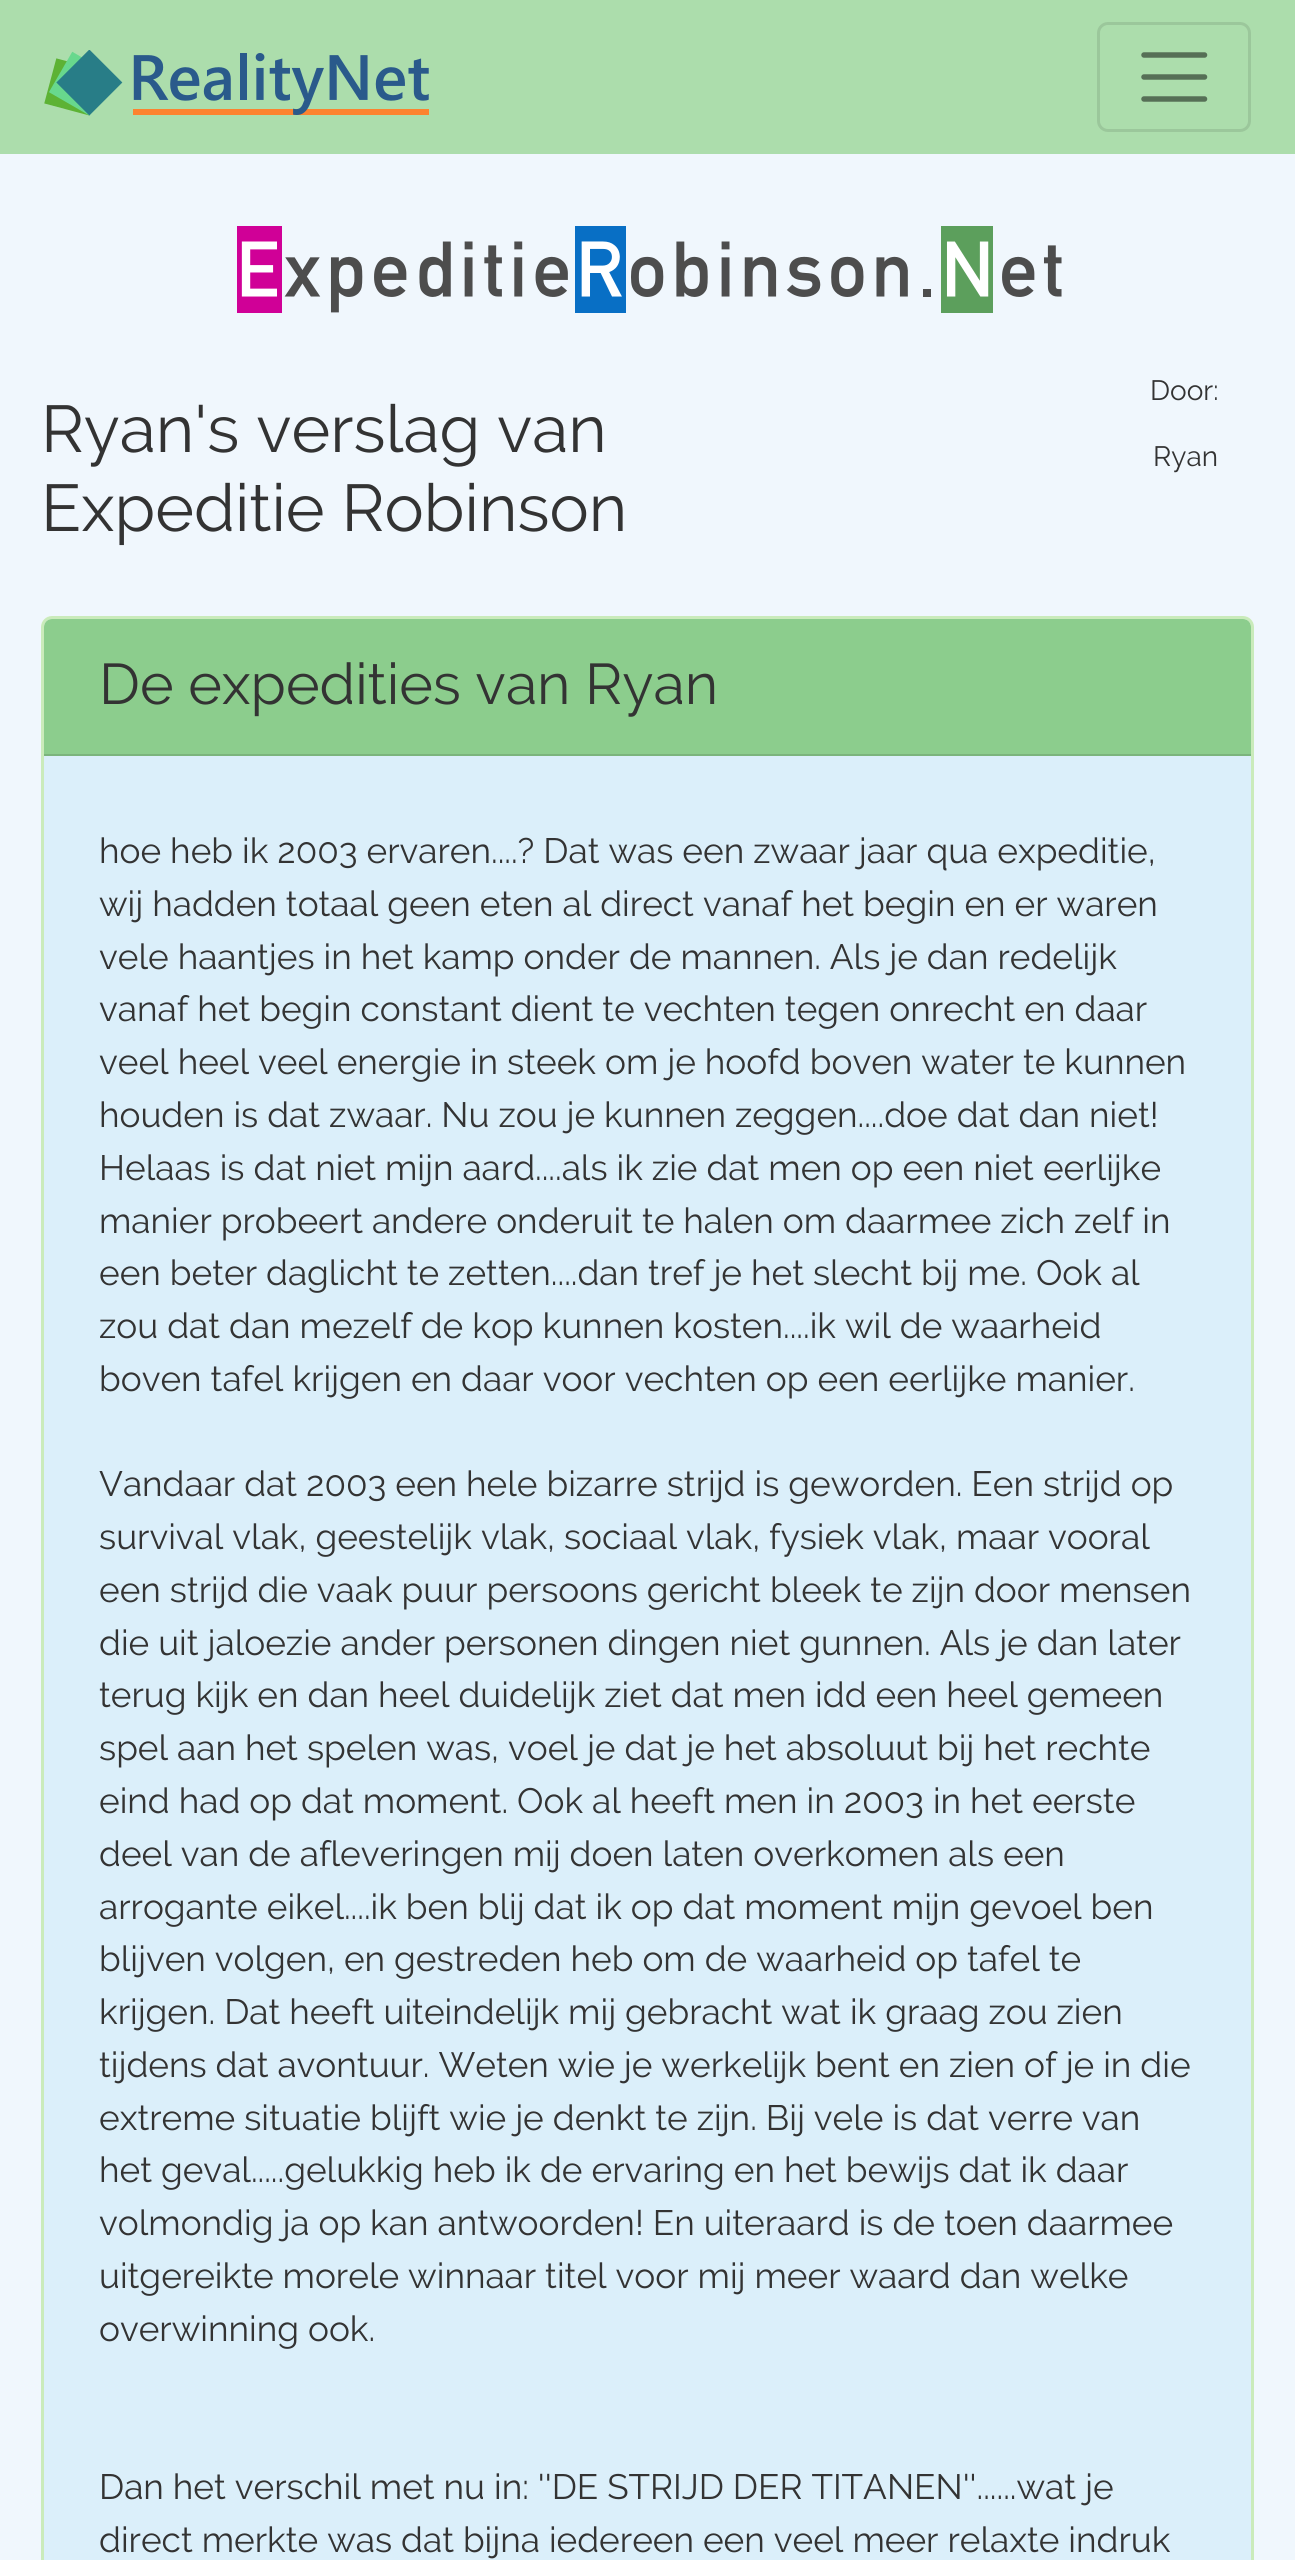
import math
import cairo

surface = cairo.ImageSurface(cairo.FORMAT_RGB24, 1295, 2560)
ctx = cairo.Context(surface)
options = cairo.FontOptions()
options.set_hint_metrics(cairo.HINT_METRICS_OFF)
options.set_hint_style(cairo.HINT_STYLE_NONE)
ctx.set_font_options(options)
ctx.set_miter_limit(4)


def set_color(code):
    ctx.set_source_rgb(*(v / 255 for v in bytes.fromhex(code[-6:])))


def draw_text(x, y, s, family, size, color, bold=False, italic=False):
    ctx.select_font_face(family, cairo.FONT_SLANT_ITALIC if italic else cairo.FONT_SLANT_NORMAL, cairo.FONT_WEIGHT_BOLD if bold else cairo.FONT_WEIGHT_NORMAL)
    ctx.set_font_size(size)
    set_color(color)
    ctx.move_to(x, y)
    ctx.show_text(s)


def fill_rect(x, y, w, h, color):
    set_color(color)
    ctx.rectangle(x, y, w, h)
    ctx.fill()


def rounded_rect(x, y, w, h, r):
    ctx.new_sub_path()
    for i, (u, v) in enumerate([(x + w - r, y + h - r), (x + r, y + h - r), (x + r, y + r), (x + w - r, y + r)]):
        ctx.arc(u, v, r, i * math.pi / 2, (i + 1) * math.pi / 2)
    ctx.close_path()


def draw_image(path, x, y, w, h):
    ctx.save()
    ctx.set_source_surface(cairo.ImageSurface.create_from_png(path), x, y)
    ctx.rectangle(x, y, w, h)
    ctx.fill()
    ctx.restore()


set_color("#f0f7fd")
ctx.paint()
fill_rect(0, 0, 1295, 154, "#acddac")
draw_image("assets/img1.png", 44, 50, 385, 66)
rounded_rect(1098.5, 23.5, 151, 107, 9.5)
set_color("#9bc79b")
ctx.set_line_width(3)
ctx.stroke()
ctx.new_path()
ctx.move_to(1144, 55)
ctx.line_to(1204.5, 55)
ctx.move_to(1144, 77)
ctx.line_to(1204.5, 77)
ctx.move_to(1144, 99)
ctx.line_to(1204.5, 99)
set_color("#566f56")
ctx.set_line_width(5.5)
ctx.set_line_cap(cairo.LINE_CAP_ROUND)
ctx.stroke()
draw_image("assets/img2.png", 237, 226, 825, 87)
draw_text(41, 452, "Ryan's verslag van", "Raleway", 66, "#333333")
draw_text(41, 531, "Expeditie Robinson", "Raleway", 66, "#333333")
draw_text(1150, 400, "Door:", "Raleway", 28, "#333333")
draw_text(1153, 466, "Ryan", "Raleway", 28, "#333333")
set_color("#ffffff")
rounded_rect(41, 616, 1213, 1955, 11)
ctx.fill()
rounded_rect(42.5, 617.5, 1210, 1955, 9.5)
ctx.set_source_rgba(0.592, 0.847, 0.475, 0.5)
ctx.set_line_width(3)
ctx.set_line_cap(cairo.LINE_CAP_BUTT)
ctx.stroke()
set_color("#8ccd8d")
ctx.new_path()
ctx.move_to(52, 619)
ctx.line_to(1243, 619)
ctx.curve_to(1247.5, 619, 1251, 622.5, 1251, 627)
ctx.line_to(1251, 756)
ctx.line_to(44, 756)
ctx.line_to(44, 627)
ctx.curve_to(44, 622.5, 47.5, 619, 52, 619)
ctx.close_path()
ctx.fill()
fill_rect(44, 754, 1207, 2, "#7bb47c")
draw_text(99, 704, "De expedities van Ryan", "Raleway", 57.25, "#333333")
fill_rect(44, 756, 1207, 1804, "#dbeffa")
draw_text(99, 863, "hoe heb ik 2003 ervaren....? Dat was een zwaar jaar qua expeditie,", "Raleway", 35.2, "#333333")
draw_text(99, 916, "wij hadden totaal geen eten al direct vanaf het begin en er waren", "Raleway", 35.2, "#333333")
draw_text(99, 969, "vele haantjes in het kamp onder de mannen. Als je dan redelijk", "Raleway", 35.2, "#333333")
draw_text(99, 1021, "vanaf het begin constant dient te vechten tegen onrecht en daar", "Raleway", 35.2, "#333333")
draw_text(99, 1074, "veel heel veel energie in steek om je hoofd boven water te kunnen", "Raleway", 35.2, "#333333")
draw_text(99, 1127, "houden is dat zwaar. Nu zou je kunnen zeggen....doe dat dan niet!", "Raleway", 35.2, "#333333")
draw_text(99, 1180, "Helaas is dat niet mijn aard....als ik zie dat men op een niet eerlijke", "Raleway", 35.2, "#333333")
draw_text(99, 1233, "manier probeert andere onderuit te halen om daarmee zich zelf in", "Raleway", 35.2, "#333333")
draw_text(99, 1285, "een beter daglicht te zetten....dan tref je het slecht bij me. Ook al", "Raleway", 35.2, "#333333")
draw_text(99, 1338, "zou dat dan mezelf de kop kunnen kosten....ik wil de waarheid", "Raleway", 35.2, "#333333")
draw_text(99, 1391, "boven tafel krijgen en daar voor vechten op een eerlijke manier.", "Raleway", 35.2, "#333333")
draw_text(99, 1496, "Vandaar dat 2003 een hele bizarre strijd is geworden. Een strijd op", "Raleway", 35.2, "#333333")
draw_text(99, 1549, "survival vlak, geestelijk vlak, sociaal vlak, fysiek vlak, maar vooral", "Raleway", 35.2, "#333333")
draw_text(99, 1602, "een strijd die vaak puur persoons gericht bleek te zijn door mensen", "Raleway", 35.2, "#333333")
draw_text(99, 1655, "die uit jaloezie ander personen dingen niet gunnen. Als je dan later", "Raleway", 35.2, "#333333")
draw_text(99, 1707, "terug kijk en dan heel duidelijk ziet dat men idd een heel gemeen", "Raleway", 35.2, "#333333")
draw_text(99, 1760, "spel aan het spelen was, voel je dat je het absoluut bij het rechte", "Raleway", 35.2, "#333333")
draw_text(99, 1813, "eind had op dat moment. Ook al heeft men in 2003 in het eerste", "Raleway", 35.2, "#333333")
draw_text(99, 1866, "deel van de afleveringen mij doen laten overkomen als een", "Raleway", 35.2, "#333333")
draw_text(99, 1919, "arrogante eikel....ik ben blij dat ik op dat moment mijn gevoel ben", "Raleway", 35.2, "#333333")
draw_text(99, 1971, "blijven volgen, en gestreden heb om de waarheid op tafel te", "Raleway", 35.2, "#333333")
draw_text(99, 2024, "krijgen. Dat heeft uiteindelijk mij gebracht wat ik graag zou zien", "Raleway", 35.2, "#333333")
draw_text(99, 2077, "tijdens dat avontuur. Weten wie je werkelijk bent en zien of je in die", "Raleway", 35.2, "#333333")
draw_text(99, 2130, "extreme situatie blijft wie je denkt te zijn. Bij vele is dat verre van", "Raleway", 35.2, "#333333")
draw_text(99, 2182, "het geval.....gelukkig heb ik de ervaring en het bewijs dat ik daar", "Raleway", 35.2, "#333333")
draw_text(99, 2235, "volmondig ja op kan antwoorden! En uiteraard is de toen daarmee", "Raleway", 35.2, "#333333")
draw_text(99, 2288, "uitgereikte morele winnaar titel voor mij meer waard dan welke", "Raleway", 35.2, "#333333")
draw_text(99, 2341, "overwinning ook.", "Raleway", 35.2, "#333333")
draw_text(99, 2499, "Dan het verschil met nu in: ''DE STRIJD DER TITANEN''......wat je", "Raleway", 35.2, "#333333")
draw_text(99, 2552, "direct merkte was dat bijna iedereen een veel meer relaxte indruk", "Raleway", 35.2, "#333333")
surface.write_to_png("output.png")
